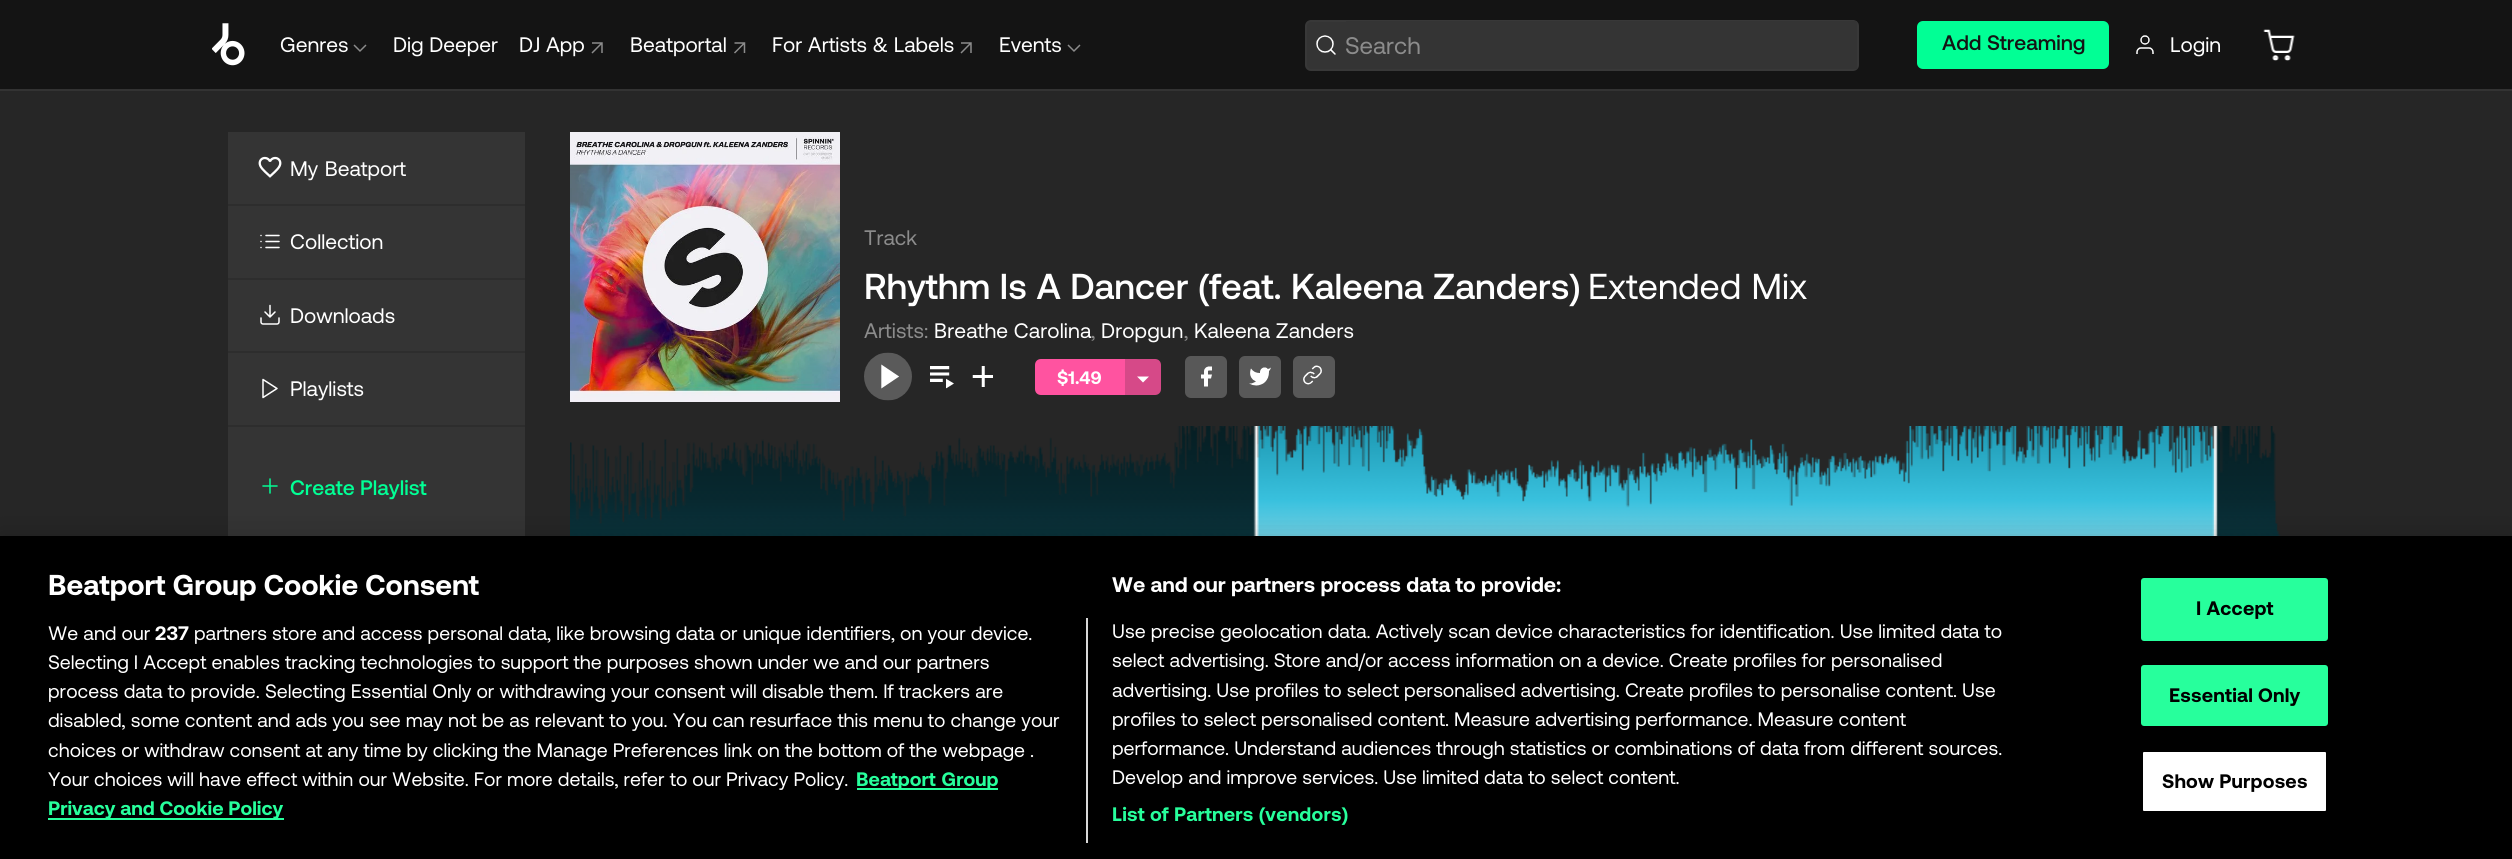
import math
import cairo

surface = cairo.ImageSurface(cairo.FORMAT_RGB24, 2512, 859)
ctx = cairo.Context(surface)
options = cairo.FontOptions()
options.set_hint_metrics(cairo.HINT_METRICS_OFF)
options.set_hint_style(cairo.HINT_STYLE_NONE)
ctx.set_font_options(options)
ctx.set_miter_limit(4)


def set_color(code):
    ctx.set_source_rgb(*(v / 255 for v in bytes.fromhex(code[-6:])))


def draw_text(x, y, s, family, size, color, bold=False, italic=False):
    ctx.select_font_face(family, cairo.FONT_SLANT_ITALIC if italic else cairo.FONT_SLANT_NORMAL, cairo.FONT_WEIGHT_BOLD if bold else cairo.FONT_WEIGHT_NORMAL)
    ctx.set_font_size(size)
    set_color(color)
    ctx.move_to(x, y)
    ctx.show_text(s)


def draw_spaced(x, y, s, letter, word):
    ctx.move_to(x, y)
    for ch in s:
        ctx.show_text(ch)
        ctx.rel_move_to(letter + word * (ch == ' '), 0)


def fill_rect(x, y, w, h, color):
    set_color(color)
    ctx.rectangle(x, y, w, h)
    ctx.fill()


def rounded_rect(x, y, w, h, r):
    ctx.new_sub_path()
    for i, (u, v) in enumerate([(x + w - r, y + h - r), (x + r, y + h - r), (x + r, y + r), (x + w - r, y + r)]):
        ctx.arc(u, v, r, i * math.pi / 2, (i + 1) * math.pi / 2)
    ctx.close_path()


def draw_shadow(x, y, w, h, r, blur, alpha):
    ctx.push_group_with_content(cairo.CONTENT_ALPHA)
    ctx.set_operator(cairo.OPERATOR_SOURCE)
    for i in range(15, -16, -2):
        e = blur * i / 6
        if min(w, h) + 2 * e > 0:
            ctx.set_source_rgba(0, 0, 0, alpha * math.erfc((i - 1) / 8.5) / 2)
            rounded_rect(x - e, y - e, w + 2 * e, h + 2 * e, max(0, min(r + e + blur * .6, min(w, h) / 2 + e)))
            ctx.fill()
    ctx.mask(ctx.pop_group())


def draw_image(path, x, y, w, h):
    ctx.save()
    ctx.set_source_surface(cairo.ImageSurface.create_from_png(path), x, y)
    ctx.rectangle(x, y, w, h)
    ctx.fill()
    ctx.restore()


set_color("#262626")
ctx.paint()
fill_rect(0, 0, 2512, 89, "#141414")
fill_rect(0, 89, 2512, 2, "#333333")
draw_image("assets/img1.png", 212, 23, 33, 43)
draw_text(280, 52, "Genres", "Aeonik", 21, "#ffffff")
draw_image("assets/img2.png", 353, 44, 14, 8)
draw_text(393, 52, "Dig Deeper", "Aeonik", 21, "#ffffff")
draw_text(519, 52, "DJ App", "Aeonik", 21, "#ffffff")
draw_image("assets/img3.png", 591, 42, 12, 12)
draw_text(630, 52, "Beatportal", "Aeonik", 21, "#ffffff")
draw_image("assets/img4.png", 734, 42, 12, 12)
draw_text(772, 52, "For Artists & Labels", "Aeonik", 21, "#ffffff")
draw_image("assets/img3.png", 960, 42, 12, 12)
draw_text(999, 52, "Events", "Aeonik", 21, "#ffffff")
draw_image("assets/img2.png", 1067, 44, 14, 8)
set_color("#343434")
rounded_rect(1306, 21, 552, 49, 5)
ctx.fill_preserve()
set_color("#383838")
ctx.stroke()
draw_image("assets/img5.png", 1316, 35, 20, 20)
fill_rect(1346, 21, 511, 48, "#343434")
draw_text(1345, 54, "Search", "Aeonik", 24, "#8c8c8c")
set_color("#01ff95")
rounded_rect(1917, 21, 192, 48, 6)
ctx.fill()
draw_text(1942, 50, "Add Streaming", "Aeonik Medium", 21, "#141414")
draw_image("assets/img6.png", 2136, 35, 18, 19)
draw_text(2170, 52, "Login", "Aeonik", 21, "#ffffff")
draw_image("assets/img7.png", 2263, 29, 32, 32)
fill_rect(228, 132, 297, 404, "#343434")
fill_rect(228, 204, 297, 2, "#2d2d2d")
draw_image("assets/img8.png", 258, 156, 24, 22)
set_color("#ffffff")
draw_spaced(290, 176, "My Beatport", 0, 1)
fill_rect(228, 278, 297, 2, "#2d2d2d")
draw_image("assets/img9.png", 260, 234, 20, 15)
draw_text(290, 249, "Collection", "Aeonik", 21, "#ffffff")
fill_rect(228, 351, 297, 2, "#2d2d2d")
draw_image("assets/img10.png", 260, 304, 20, 21)
draw_text(290, 323, "Downloads", "Aeonik", 21, "#ffffff")
fill_rect(228, 425, 297, 2, "#2d2d2d")
ctx.new_path()
ctx.move_to(263, 379.5)
ctx.line_to(277, 388.5)
ctx.line_to(263, 397.5)
ctx.close_path()
set_color("#ffffff")
ctx.set_line_width(1.5)
ctx.set_line_cap(cairo.LINE_CAP_ROUND)
ctx.set_line_join(cairo.LINE_JOIN_ROUND)
ctx.stroke()
draw_text(290, 396, "Playlists", "Aeonik", 21, "#ffffff")
ctx.new_path()
ctx.move_to(270, 479)
ctx.line_to(270, 493)
ctx.move_to(263, 486)
ctx.line_to(277, 486)
set_color("#01ff95")
ctx.stroke()
draw_text(290, 495, "Create Playlist", "Aeonik Medium", 21, "#01ff95")
draw_image("assets/img11.png", 570, 132, 270, 270)
draw_text(864, 245, "Track", "Aeonik", 21, "#8c8c8c")
ctx.select_font_face("Aeonik Medium")
ctx.set_font_size(36)
set_color("#ffffff")
draw_spaced(864, 299, "Rhythm Is A Dancer (feat. Kaleena Zanders)", 0, 0.25)
ctx.select_font_face("Aeonik")
draw_spaced(1588, 299, "Extended Mix", 0, 1)
ctx.set_font_size(21)
set_color("#8c8c8c")
draw_spaced(864, 338, "Artists", 0.1, 0)
draw_spaced(924, 338, ":", 0.1, 0)
set_color("#ffffff")
draw_spaced(934, 338, "Breathe Carolina", 0.1, 0)
set_color("#8c8c8c")
draw_spaced(1091, 338, ",", 0.1, 0)
set_color("#ffffff")
draw_spaced(1101, 338, "Dropgun", 0.1, 0)
set_color("#8c8c8c")
draw_spaced(1184, 338, ",", 0.1, 0)
set_color("#ffffff")
draw_spaced(1194, 338, "Kaleena Zanders", 0.1, 0)
draw_image("assets/img12.png", 864, 352, 48, 49)
draw_image("assets/img13.png", 930, 366, 24, 23)
draw_image("assets/img14.png", 972, 366, 21, 21)
set_color("#ff53a0")
ctx.new_path()
ctx.move_to(1041, 359)
ctx.line_to(1125, 359)
ctx.line_to(1125, 395)
ctx.line_to(1041, 395)
ctx.curve_to(1037.5, 395, 1035, 392.5, 1035, 389)
ctx.line_to(1035, 365)
ctx.curve_to(1035, 361.5, 1037.5, 359, 1041, 359)
ctx.close_path()
ctx.fill()
draw_text(1057, 384, "$1.49", "Aeonik", 18, "#ffffff", bold=True)
set_color("#d64988")
ctx.new_path()
ctx.move_to(1125, 359)
ctx.line_to(1155, 359)
ctx.curve_to(1158.5, 359, 1161, 361.5, 1161, 365)
ctx.line_to(1161, 389)
ctx.curve_to(1161, 392.5, 1158.5, 395, 1155, 395)
ctx.line_to(1125, 395)
ctx.close_path()
ctx.fill()
set_color("#ffffff")
ctx.new_path()
ctx.move_to(1137, 376.5)
ctx.line_to(1149, 376.5)
ctx.line_to(1143, 382.5)
ctx.close_path()
ctx.fill()
set_color("#585858")
rounded_rect(1185, 356, 42, 42, 6)
ctx.fill()
draw_image("assets/img15.png", 1201, 366, 11, 21)
rounded_rect(1239, 356, 42, 42, 6)
ctx.fill()
draw_image("assets/img16.png", 1249, 367, 22, 19)
rounded_rect(1293, 356, 42, 42, 6)
ctx.fill()
draw_image("assets/img17.png", 1303, 365, 19, 20)
draw_image("assets/img18.png", 570, 426, 1711, 110)
set_color("#000000")
draw_shadow(0, 536, 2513, 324, 0, 13.5, 0.2)
fill_rect(0, 536, 2512, 323, "#000000")
draw_text(48, 595, "Beatport Group Cookie Consent", "Aeonik", 28.75, "#ffffff", bold=True)
draw_text(1112, 592, "We and our partners process data to provide:", "Aeonik", 21.1, "#ffffff", bold=True)
draw_text(1112, 638, "Use precise geolocation data. Actively scan device characteristics for identification. Use limited data to", "Aeonik", 19.5, "#ffffff")
draw_text(1112, 667, "select advertising. Store and/or access information on a device. Create profiles for personalised", "Aeonik", 19.5, "#ffffff")
draw_text(1112, 697, "advertising. Use profiles to select personalised advertising. Create profiles to personalise content. Use", "Aeonik", 19.5, "#ffffff")
draw_text(1112, 726, "profiles to select personalised content. Measure advertising performance. Measure content", "Aeonik", 19.5, "#ffffff")
draw_text(1112, 755, "performance. Understand audiences through statistics or combinations of data from different sources.", "Aeonik", 19.5, "#ffffff")
draw_text(1112, 784, "Develop and improve services. Use limited data to select content.", "Aeonik", 19.5, "#ffffff")
ctx.select_font_face("Aeonik", cairo.FONT_SLANT_NORMAL, cairo.FONT_WEIGHT_BOLD)
set_color("#27ff9c")
draw_spaced(1112, 821, "List of Partners (vendors)", 0.2, 0)
fill_rect(1086, 618, 2, 225, "#d8d8d8")
draw_text(48, 640, "We and our", "Aeonik", 19.5, "#ffffff")
draw_text(155, 640, "237", "Aeonik", 19.5, "#ffffff", bold=True)
draw_text(194, 640, "partners store and access personal data, like browsing data or unique identifiers, on your device.", "Aeonik", 19.5, "#ffffff")
draw_text(48, 669, "Selecting I Accept enables tracking technologies to support the purposes shown under we and our partners", "Aeonik", 19.5, "#ffffff")
draw_text(48, 698, "process data to provide. Selecting Essential Only or withdrawing your consent will disable them. If trackers are", "Aeonik", 19.5, "#ffffff")
draw_text(48, 727, "disabled, some content and ads you see may not be as relevant to you. You can resurface this menu to change your", "Aeonik", 19.5, "#ffffff")
draw_text(48, 757, "choices or withdraw consent at any time by clicking the Manage Preferences link on the bottom of the webpage .", "Aeonik", 19.5, "#ffffff")
draw_text(48, 786, "Your choices will have effect within our Website. For more details, refer to our Privacy Policy.", "Aeonik", 19.5, "#ffffff")
fill_rect(857, 788, 141, 2, "#27ff9c")
ctx.select_font_face("Aeonik", cairo.FONT_SLANT_NORMAL, cairo.FONT_WEIGHT_BOLD)
draw_spaced(856, 786, "Beatport Group", 0, 1)
fill_rect(48, 818, 236, 2, "#27ff9c")
draw_text(48, 815, "Privacy and Cookie Policy", "Aeonik", 19.5, "#27ff9c", bold=True)
rounded_rect(2142, 579, 185, 61, 2)
ctx.fill_preserve()
ctx.set_line_width(2)
ctx.set_line_cap(cairo.LINE_CAP_BUTT)
ctx.set_line_join(cairo.LINE_JOIN_MITER)
ctx.stroke()
set_color("#000000")
draw_spaced(2196, 615, "I Accept", 0.2, 0)
set_color("#27ff9c")
rounded_rect(2142, 666, 185, 59, 2)
ctx.fill_preserve()
ctx.stroke()
set_color("#000000")
draw_spaced(2169, 702, "Essential Only", 0.2, 0)
set_color("#ffffff")
rounded_rect(2142, 751, 185, 61, 2)
ctx.fill_preserve()
set_color("#000000")
ctx.stroke()
draw_spaced(2162, 788, "Show Purposes", 0.2, 0)
surface.write_to_png("output.png")
